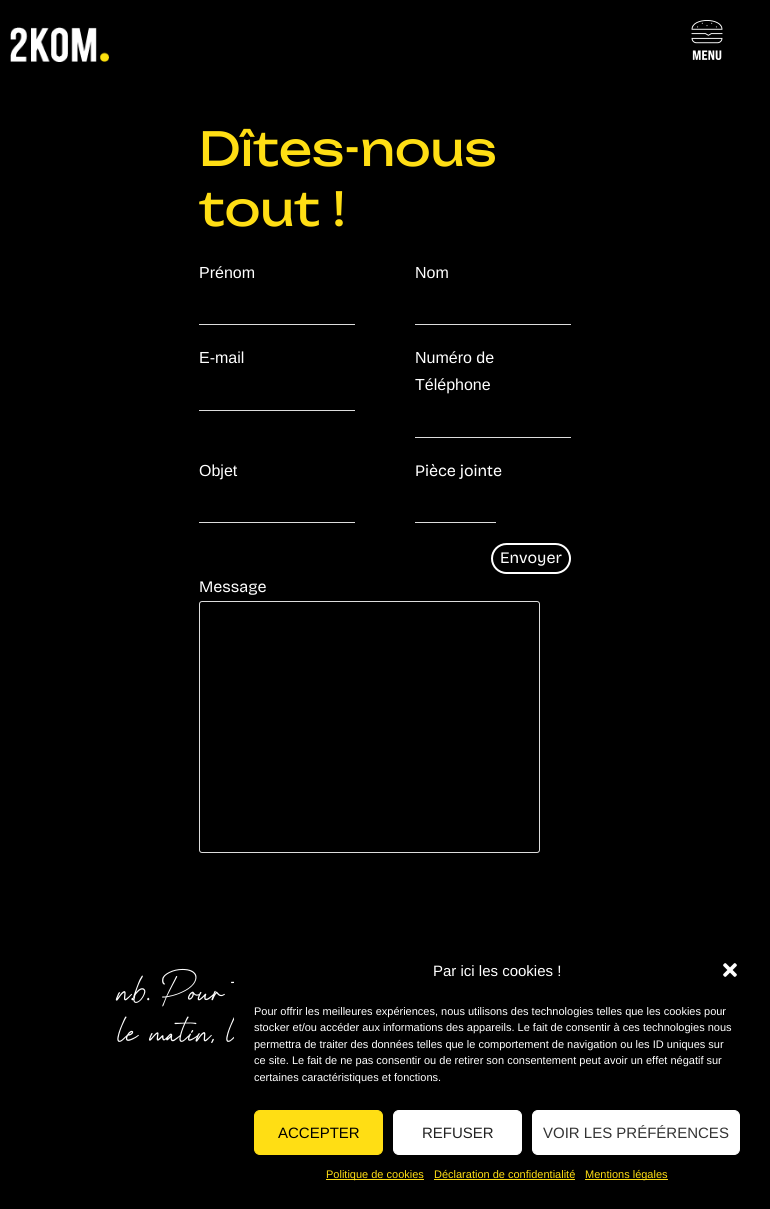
import math
import cairo

surface = cairo.ImageSurface(cairo.FORMAT_RGB24, 770, 1209)
ctx = cairo.Context(surface)
options = cairo.FontOptions()
options.set_hint_metrics(cairo.HINT_METRICS_OFF)
options.set_hint_style(cairo.HINT_STYLE_NONE)
ctx.set_font_options(options)
ctx.set_miter_limit(4)


def set_color(code):
    ctx.set_source_rgb(*(v / 255 for v in bytes.fromhex(code[-6:])))


def draw_text(x, y, s, family, size, color, bold=False, italic=False):
    ctx.select_font_face(family, cairo.FONT_SLANT_ITALIC if italic else cairo.FONT_SLANT_NORMAL, cairo.FONT_WEIGHT_BOLD if bold else cairo.FONT_WEIGHT_NORMAL)
    ctx.set_font_size(size)
    set_color(color)
    ctx.move_to(x, y)
    ctx.show_text(s)


def fill_rect(x, y, w, h, color):
    set_color(color)
    ctx.rectangle(x, y, w, h)
    ctx.fill()


def rounded_rect(x, y, w, h, r):
    ctx.new_sub_path()
    for i, (u, v) in enumerate([(x + w - r, y + h - r), (x + r, y + h - r), (x + r, y + r), (x + w - r, y + r)]):
        ctx.arc(u, v, r, i * math.pi / 2, (i + 1) * math.pi / 2)
    ctx.close_path()


def draw_image(path, x, y, w, h):
    ctx.save()
    ctx.set_source_surface(cairo.ImageSurface.create_from_png(path), x, y)
    ctx.rectangle(x, y, w, h)
    ctx.fill()
    ctx.restore()


set_color("#000000")
ctx.paint()
draw_image("assets/img1.png", 10, 27, 99, 35)
draw_image("assets/img2.png", 691, 20, 32, 40)
draw_text(199, 166, "Dîtes-nous", "Unbounded", 46.5, "#ffde14")
draw_text(199, 226, "tout !", "Unbounded", 46.5, "#ffde14")
draw_text(199, 278, "Prénom", "Liberation Sans", 16, "#ffffff")
fill_rect(199, 324, 156, 1, "#dddddd")
draw_text(415, 278, "Nom", "Liberation Sans", 16, "#ffffff")
fill_rect(415, 324, 156, 1, "#dddddd")
draw_text(199, 363, "E-mail", "Liberation Sans", 16, "#ffffff")
fill_rect(199, 410, 156, 1, "#dddddd")
draw_text(415, 363, "Numéro de", "Liberation Sans", 16, "#ffffff")
draw_text(415, 390, "Téléphone", "Liberation Sans", 16, "#ffffff")
fill_rect(415, 437, 156, 1, "#dddddd")
draw_text(199, 476, "Objet", "Liberation Sans", 16, "#ffffff")
fill_rect(199, 522, 156, 1, "#dddddd")
draw_text(415, 476, "Pièce jointe", "Bricolage Grotesque", 16, "#ffffff")
fill_rect(415, 522, 81, 1, "#dddddd")
rounded_rect(492, 544, 78, 29, 14.5)
set_color("#ffffff")
ctx.stroke()
draw_text(500, 563, "Envoyer", "Bricolage Grotesque", 16, "#ffffff")
draw_text(199, 592, "Message", "Bricolage Grotesque", 16, "#ffffff")
rounded_rect(199.5, 601.5, 340, 251, 2.5)
set_color("#dddddd")
ctx.set_line_width(1)
ctx.stroke()
draw_image("assets/img3.png", 115, 968, 119, 39)
draw_image("assets/img4.png", 117, 1016, 117, 27)
draw_text(433, 976, "Par ici les cookies !", "Liberation Sans", 15, "#ffffff")
draw_image("assets/img5.png", 723, 963, 14, 14)
draw_text(254, 1015, "Pour offrir les meilleures expériences, nous utilisons des technologies telles que les cookies pour", "Liberation Sans", 11, "#ffffff")
draw_text(254, 1031, "stocker et/ou accéder aux informations des appareils. Le fait de consentir à ces technologies nous", "Liberation Sans", 11, "#ffffff")
draw_text(254, 1048, "permettra de traiter des données telles que le comportement de navigation ou les ID uniques sur", "Liberation Sans", 11, "#ffffff")
draw_text(254, 1064, "ce site. Le fait de ne pas consentir ou de retirer son consentement peut avoir un effet négatif sur", "Liberation Sans", 11, "#ffffff")
draw_text(254, 1081, "certaines caractéristiques et fonctions.", "Liberation Sans", 11, "#ffffff")
set_color("#ffde14")
rounded_rect(254.5, 1110.5, 128, 44, 5.5)
ctx.fill_preserve()
ctx.stroke()
draw_text(278, 1138, "ACCEPTER", "Liberation Sans", 15, "#000000")
set_color("#ffffff")
rounded_rect(393.5, 1110.5, 128, 44, 5.5)
ctx.fill_preserve()
ctx.stroke()
draw_text(422, 1138, "REFUSER", "Liberation Sans", 15, "#222222")
set_color("#ffffff")
rounded_rect(532.5, 1110.5, 207, 44, 5.5)
ctx.fill_preserve()
ctx.stroke()
draw_text(543, 1138, "VOIR LES PRÉFÉRENCES", "Liberation Sans", 15, "#333333")
fill_rect(326, 1179, 98, 1, "#ffde14")
draw_text(326, 1178, "Politique de cookies", "Liberation Sans", 11, "#ffde14")
draw_text(434, 1178, "Déclaration de confidentialité", "Liberation Sans", 11, "#ffde14")
fill_rect(434, 1179, 141, 1, "#ffde14")
fill_rect(585, 1179, 83, 1, "#ffde14")
draw_text(585, 1178, "Mentions légales", "Liberation Sans", 11, "#ffde14")
surface.write_to_png("output.png")
